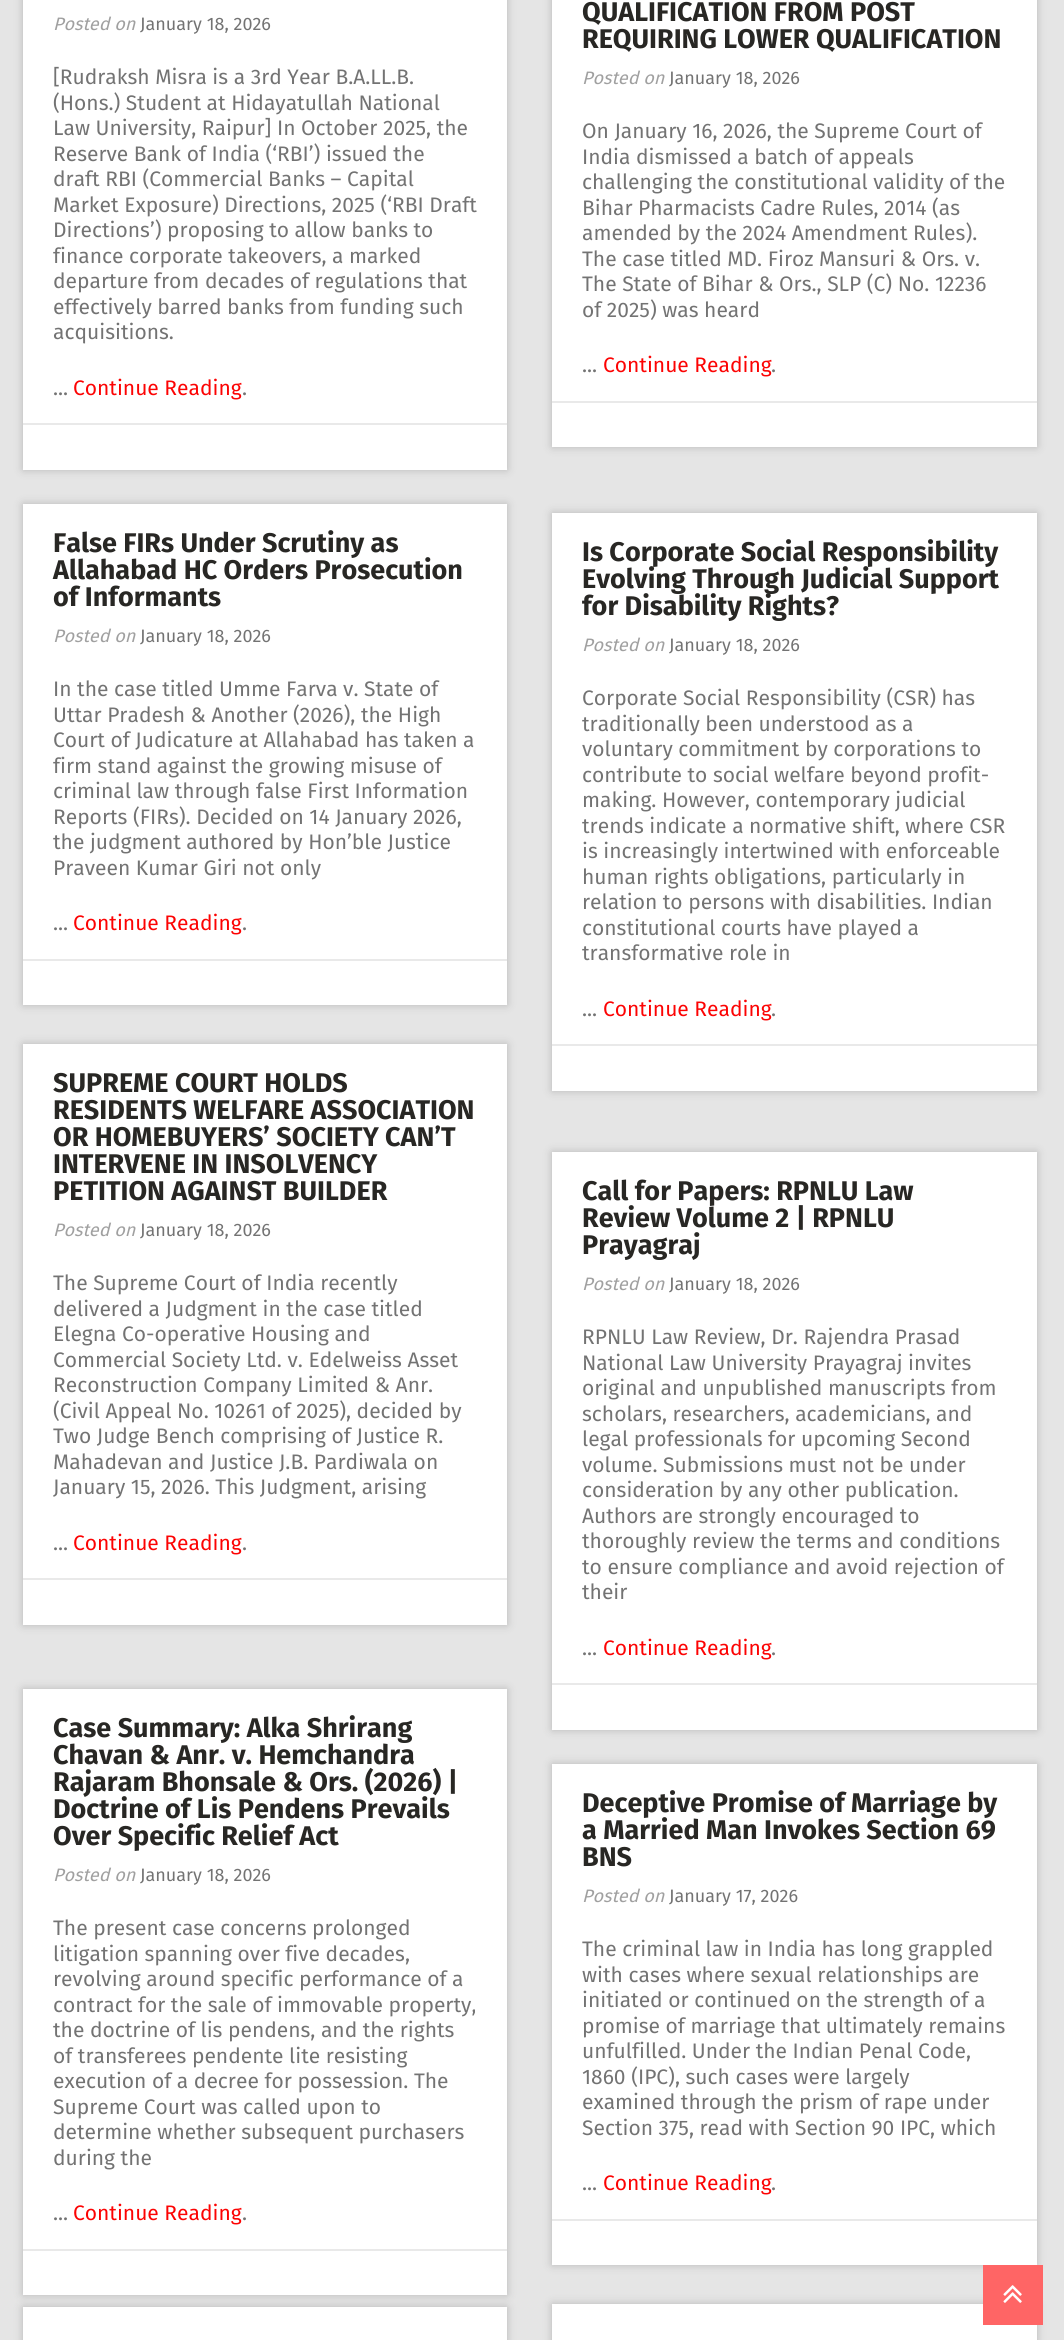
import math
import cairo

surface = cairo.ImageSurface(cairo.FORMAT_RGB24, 1064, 2340)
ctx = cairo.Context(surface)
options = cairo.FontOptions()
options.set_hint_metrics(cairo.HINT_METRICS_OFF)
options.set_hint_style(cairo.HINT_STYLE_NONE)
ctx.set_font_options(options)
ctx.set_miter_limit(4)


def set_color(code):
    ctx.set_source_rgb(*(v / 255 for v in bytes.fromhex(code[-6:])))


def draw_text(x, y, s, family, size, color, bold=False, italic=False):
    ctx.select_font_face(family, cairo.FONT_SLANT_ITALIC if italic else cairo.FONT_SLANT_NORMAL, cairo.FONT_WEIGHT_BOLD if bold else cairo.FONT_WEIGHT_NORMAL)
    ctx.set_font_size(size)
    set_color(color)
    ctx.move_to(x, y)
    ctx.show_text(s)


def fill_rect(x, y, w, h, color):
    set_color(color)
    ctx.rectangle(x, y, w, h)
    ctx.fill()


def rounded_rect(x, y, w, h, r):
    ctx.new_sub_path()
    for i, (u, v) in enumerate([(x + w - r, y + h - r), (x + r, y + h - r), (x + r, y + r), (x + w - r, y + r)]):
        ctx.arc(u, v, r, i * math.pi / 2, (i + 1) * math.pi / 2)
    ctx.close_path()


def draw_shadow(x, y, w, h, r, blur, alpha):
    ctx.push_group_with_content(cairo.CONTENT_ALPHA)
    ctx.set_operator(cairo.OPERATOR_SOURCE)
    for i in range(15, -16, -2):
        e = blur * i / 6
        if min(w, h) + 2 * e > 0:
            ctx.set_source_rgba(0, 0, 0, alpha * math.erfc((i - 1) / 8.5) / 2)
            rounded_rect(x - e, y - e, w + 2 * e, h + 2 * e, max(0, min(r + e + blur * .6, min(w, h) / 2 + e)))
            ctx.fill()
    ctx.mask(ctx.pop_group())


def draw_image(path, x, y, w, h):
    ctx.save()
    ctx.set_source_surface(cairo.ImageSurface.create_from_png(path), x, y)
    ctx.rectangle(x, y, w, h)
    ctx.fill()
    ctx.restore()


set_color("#e5e5e5")
ctx.paint()
set_color("#000000")
draw_shadow(23, -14, 484, 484, 0, 4.5, 0.2)
fill_rect(23, 0, 484, 470, "#ffffff")
draw_text(53, 30, "Posted on", "Fira Sans", 18, "#a0a0a0", italic=True)
draw_text(140, 30, "January 18, 2026", "Fira Sans", 18, "#737373")
draw_text(53, 84, "[Rudraksh Misra is a 3rd Year B.A.LL.B.", "Fira Sans", 21, "#737373")
draw_text(53, 110, "(Hons.) Student at Hidayatullah National", "Fira Sans", 21, "#737373")
draw_text(53, 135, "Law University, Raipur] In October 2025, the", "Fira Sans", 21, "#737373")
draw_text(53, 161, "Reserve Bank of India (‘RBI’) issued the", "Fira Sans", 21, "#737373")
draw_text(53, 186, "draft RBI (Commercial Banks – Capital", "Fira Sans", 21, "#737373")
draw_text(53, 212, "Market Exposure) Directions, 2025 (‘RBI Draft", "Fira Sans", 21, "#737373")
draw_text(53, 237, "Directions’) proposing to allow banks to", "Fira Sans", 21, "#737373")
draw_text(53, 263, "finance corporate takeovers, a marked", "Fira Sans", 21, "#737373")
draw_text(53, 288, "departure from decades of regulations that", "Fira Sans", 21, "#737373")
draw_text(53, 314, "effectively barred banks from funding such", "Fira Sans", 21, "#737373")
draw_text(53, 339, "acquisitions.", "Fira Sans", 21, "#737373")
draw_text(53, 395, "...", "Fira Sans", 21, "#737373")
draw_text(73, 395, "Continue Reading", "Fira Sans", 21, "#fc0303")
draw_text(242, 395, ".", "Fira Sans", 21, "#737373")
fill_rect(23, 423, 484, 2, "#e9e9e9")
set_color("#000000")
draw_shadow(552, -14, 485, 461, 0, 4.5, 0.2)
fill_rect(552, 0, 485, 447, "#ffffff")
draw_text(582, 21, "QUALIFICATION FROM POST", "Fira Sans", 27, "#282724", bold=True)
draw_text(582, 48, "REQUIRING LOWER QUALIFICATION", "Fira Sans", 27, "#282724", bold=True)
draw_text(582, 84, "Posted on", "Fira Sans", 18, "#a0a0a0", italic=True)
draw_text(669, 84, "January 18, 2026", "Fira Sans", 18, "#737373")
draw_text(582, 138, "On January 16, 2026, the Supreme Court of", "Fira Sans", 21, "#737373")
draw_text(582, 164, "India dismissed a batch of appeals", "Fira Sans", 21, "#737373")
draw_text(582, 189, "challenging the constitutional validity of the", "Fira Sans", 21, "#737373")
draw_text(582, 215, "Bihar Pharmacists Cadre Rules, 2014 (as", "Fira Sans", 21, "#737373")
draw_text(582, 240, "amended by the 2024 Amendment Rules).", "Fira Sans", 21, "#737373")
draw_text(582, 266, "The case titled MD. Firoz Mansuri & Ors. v.", "Fira Sans", 21, "#737373")
draw_text(582, 291, "The State of Bihar & Ors., SLP (C) No. 12236", "Fira Sans", 21, "#737373")
draw_text(582, 317, "of 2025) was heard", "Fira Sans", 21, "#737373")
draw_text(582, 372, "...", "Fira Sans", 21, "#737373")
draw_text(603, 372, "Continue Reading", "Fira Sans", 21, "#fc0303")
draw_text(771, 372, ".", "Fira Sans", 21, "#737373")
fill_rect(552, 401, 485, 2, "#e9e9e9")
set_color("#000000")
draw_shadow(23, 504, 484, 501, 0, 4.5, 0.2)
fill_rect(23, 504, 484, 501, "#ffffff")
draw_text(53, 552, "False FIRs Under Scrutiny as", "Fira Sans", 27, "#282724", bold=True)
draw_text(53, 579, "Allahabad HC Orders Prosecution", "Fira Sans", 27, "#282724", bold=True)
draw_text(53, 606, "of Informants", "Fira Sans", 27, "#282724", bold=True)
draw_text(53, 642, "Posted on", "Fira Sans", 18, "#a0a0a0", italic=True)
draw_text(140, 642, "January 18, 2026", "Fira Sans", 18, "#737373")
draw_text(53, 696, "In the case titled Umme Farva v. State of", "Fira Sans", 21, "#737373")
draw_text(53, 722, "Uttar Pradesh & Another (2026), the High", "Fira Sans", 21, "#737373")
draw_text(53, 747, "Court of Judicature at Allahabad has taken a", "Fira Sans", 21, "#737373")
draw_text(53, 773, "firm stand against the growing misuse of", "Fira Sans", 21, "#737373")
draw_text(53, 798, "criminal law through false First Information", "Fira Sans", 21, "#737373")
draw_text(53, 824, "Reports (FIRs). Decided on 14 January 2026,", "Fira Sans", 21, "#737373")
draw_text(53, 849, "the judgment authored by Hon’ble Justice", "Fira Sans", 21, "#737373")
draw_text(53, 875, "Praveen Kumar Giri not only", "Fira Sans", 21, "#737373")
draw_text(53, 930, "...", "Fira Sans", 21, "#737373")
draw_text(73, 930, "Continue Reading", "Fira Sans", 21, "#fc0303")
draw_text(242, 930, ".", "Fira Sans", 21, "#737373")
fill_rect(23, 959, 484, 2, "#e9e9e9")
set_color("#000000")
draw_shadow(552, 513, 485, 578, 0, 4.5, 0.2)
fill_rect(552, 513, 485, 578, "#ffffff")
draw_text(582, 561, "Is Corporate Social Responsibility", "Fira Sans", 27, "#282724", bold=True)
draw_text(582, 588, "Evolving Through Judicial Support", "Fira Sans", 27, "#282724", bold=True)
draw_text(582, 615, "for Disability Rights?", "Fira Sans", 27, "#282724", bold=True)
draw_text(582, 651, "Posted on", "Fira Sans", 18, "#a0a0a0", italic=True)
draw_text(669, 651, "January 18, 2026", "Fira Sans", 18, "#737373")
draw_text(582, 705, "Corporate Social Responsibility (CSR) has", "Fira Sans", 21, "#737373")
draw_text(582, 731, "traditionally been understood as a", "Fira Sans", 21, "#737373")
draw_text(582, 756, "voluntary commitment by corporations to", "Fira Sans", 21, "#737373")
draw_text(582, 782, "contribute to social welfare beyond profit-", "Fira Sans", 21, "#737373")
draw_text(582, 807, "making. However, contemporary judicial", "Fira Sans", 21, "#737373")
draw_text(582, 833, "trends indicate a normative shift, where CSR", "Fira Sans", 21, "#737373")
draw_text(582, 858, "is increasingly intertwined with enforceable", "Fira Sans", 21, "#737373")
draw_text(582, 884, "human rights obligations, particularly in", "Fira Sans", 21, "#737373")
draw_text(582, 909, "relation to persons with disabilities. Indian", "Fira Sans", 21, "#737373")
draw_text(582, 935, "constitutional courts have played a", "Fira Sans", 21, "#737373")
draw_text(582, 960, "transformative role in", "Fira Sans", 21, "#737373")
draw_text(582, 1016, "...", "Fira Sans", 21, "#737373")
draw_text(603, 1016, "Continue Reading", "Fira Sans", 21, "#fc0303")
draw_text(771, 1016, ".", "Fira Sans", 21, "#737373")
fill_rect(552, 1044, 485, 2, "#e9e9e9")
set_color("#000000")
draw_shadow(23, 1044, 484, 581, 0, 4.5, 0.2)
fill_rect(23, 1044, 484, 581, "#ffffff")
draw_text(53, 1092, "SUPREME COURT HOLDS", "Fira Sans", 27, "#282724", bold=True)
draw_text(53, 1119, "RESIDENTS WELFARE ASSOCIATION", "Fira Sans", 27, "#282724", bold=True)
draw_text(53, 1146, "OR HOMEBUYERS’ SOCIETY CAN’T", "Fira Sans", 27, "#282724", bold=True)
draw_text(53, 1173, "INTERVENE IN INSOLVENCY", "Fira Sans", 27, "#282724", bold=True)
draw_text(53, 1200, "PETITION AGAINST BUILDER", "Fira Sans", 27, "#282724", bold=True)
draw_text(53, 1236, "Posted on", "Fira Sans", 18, "#a0a0a0", italic=True)
draw_text(140, 1236, "January 18, 2026", "Fira Sans", 18, "#737373")
draw_text(53, 1290, "The Supreme Court of India recently", "Fira Sans", 21, "#737373")
draw_text(53, 1316, "delivered a Judgment in the case titled", "Fira Sans", 21, "#737373")
draw_text(53, 1341, "Elegna Co-operative Housing and", "Fira Sans", 21, "#737373")
draw_text(53, 1367, "Commercial Society Ltd. v. Edelweiss Asset", "Fira Sans", 21, "#737373")
draw_text(53, 1392, "Reconstruction Company Limited & Anr.", "Fira Sans", 21, "#737373")
draw_text(53, 1418, "(Civil Appeal No. 10261 of 2025), decided by", "Fira Sans", 21, "#737373")
draw_text(53, 1443, "Two Judge Bench comprising of Justice R.", "Fira Sans", 21, "#737373")
draw_text(53, 1469, "Mahadevan and Justice J.B. Pardiwala on", "Fira Sans", 21, "#737373")
draw_text(53, 1494, "January 15, 2026. This Judgment, arising", "Fira Sans", 21, "#737373")
draw_text(53, 1550, "...", "Fira Sans", 21, "#737373")
draw_text(73, 1550, "Continue Reading", "Fira Sans", 21, "#fc0303")
draw_text(242, 1550, ".", "Fira Sans", 21, "#737373")
fill_rect(23, 1578, 484, 2, "#e9e9e9")
set_color("#000000")
draw_shadow(552, 1152, 485, 578, 0, 4.5, 0.2)
fill_rect(552, 1152, 485, 578, "#ffffff")
draw_text(582, 1200, "Call for Papers: RPNLU Law", "Fira Sans", 27, "#282724", bold=True)
draw_text(582, 1227, "Review Volume 2 | RPNLU", "Fira Sans", 27, "#282724", bold=True)
draw_text(582, 1254, "Prayagraj", "Fira Sans", 27, "#282724", bold=True)
draw_text(582, 1290, "Posted on", "Fira Sans", 18, "#a0a0a0", italic=True)
draw_text(669, 1290, "January 18, 2026", "Fira Sans", 18, "#737373")
draw_text(582, 1344, "RPNLU Law Review, Dr. Rajendra Prasad", "Fira Sans", 21, "#737373")
draw_text(582, 1370, "National Law University Prayagraj invites", "Fira Sans", 21, "#737373")
draw_text(582, 1395, "original and unpublished manuscripts from", "Fira Sans", 21, "#737373")
draw_text(582, 1421, "scholars, researchers, academicians, and", "Fira Sans", 21, "#737373")
draw_text(582, 1446, "legal professionals for upcoming Second", "Fira Sans", 21, "#737373")
draw_text(582, 1472, "volume. Submissions must not be under", "Fira Sans", 21, "#737373")
draw_text(582, 1497, "consideration by any other publication.", "Fira Sans", 21, "#737373")
draw_text(582, 1523, "Authors are strongly encouraged to", "Fira Sans", 21, "#737373")
draw_text(582, 1548, "thoroughly review the terms and conditions", "Fira Sans", 21, "#737373")
draw_text(582, 1574, "to ensure compliance and avoid rejection of", "Fira Sans", 21, "#737373")
draw_text(582, 1599, "their", "Fira Sans", 21, "#737373")
draw_text(582, 1655, "...", "Fira Sans", 21, "#737373")
draw_text(603, 1655, "Continue Reading", "Fira Sans", 21, "#fc0303")
draw_text(771, 1655, ".", "Fira Sans", 21, "#737373")
fill_rect(552, 1683, 485, 2, "#e9e9e9")
set_color("#000000")
draw_shadow(23, 1689, 484, 606, 0, 4.5, 0.2)
fill_rect(23, 1689, 484, 606, "#ffffff")
draw_text(53, 1737, "Case Summary: Alka Shrirang", "Fira Sans", 27, "#282724", bold=True)
draw_text(53, 1764, "Chavan & Anr. v. Hemchandra", "Fira Sans", 27, "#282724", bold=True)
draw_text(53, 1791, "Rajaram Bhonsale & Ors. (2026) |", "Fira Sans", 27, "#282724", bold=True)
draw_text(53, 1818, "Doctrine of Lis Pendens Prevails", "Fira Sans", 27, "#282724", bold=True)
draw_text(53, 1845, "Over Specific Relief Act", "Fira Sans", 27, "#282724", bold=True)
draw_text(53, 1881, "Posted on", "Fira Sans", 18, "#a0a0a0", italic=True)
draw_text(140, 1881, "January 18, 2026", "Fira Sans", 18, "#737373")
draw_text(53, 1935, "The present case concerns prolonged", "Fira Sans", 21, "#737373")
draw_text(53, 1961, "litigation spanning over five decades,", "Fira Sans", 21, "#737373")
draw_text(53, 1986, "revolving around specific performance of a", "Fira Sans", 21, "#737373")
draw_text(53, 2012, "contract for the sale of immovable property,", "Fira Sans", 21, "#737373")
draw_text(53, 2037, "the doctrine of lis pendens, and the rights", "Fira Sans", 21, "#737373")
draw_text(53, 2063, "of transferees pendente lite resisting", "Fira Sans", 21, "#737373")
draw_text(53, 2088, "execution of a decree for possession. The", "Fira Sans", 21, "#737373")
draw_text(53, 2114, "Supreme Court was called upon to", "Fira Sans", 21, "#737373")
draw_text(53, 2139, "determine whether subsequent purchasers", "Fira Sans", 21, "#737373")
draw_text(53, 2165, "during the", "Fira Sans", 21, "#737373")
draw_text(53, 2220, "...", "Fira Sans", 21, "#737373")
draw_text(73, 2220, "Continue Reading", "Fira Sans", 21, "#fc0303")
draw_text(242, 2220, ".", "Fira Sans", 21, "#737373")
fill_rect(23, 2249, 484, 2, "#e9e9e9")
set_color("#000000")
draw_shadow(552, 1764, 485, 501, 0, 4.5, 0.2)
fill_rect(552, 1764, 485, 501, "#ffffff")
draw_text(582, 1812, "Deceptive Promise of Marriage by", "Fira Sans", 27, "#282724", bold=True)
draw_text(582, 1839, "a Married Man Invokes Section 69", "Fira Sans", 27, "#282724", bold=True)
draw_text(582, 1866, "BNS", "Fira Sans", 27, "#282724", bold=True)
draw_text(582, 1902, "Posted on", "Fira Sans", 18, "#a0a0a0", italic=True)
draw_text(669, 1902, "January 17, 2026", "Fira Sans", 18, "#737373")
draw_text(582, 1956, "The criminal law in India has long grappled", "Fira Sans", 21, "#737373")
draw_text(582, 1982, "with cases where sexual relationships are", "Fira Sans", 21, "#737373")
draw_text(582, 2007, "initiated or continued on the strength of a", "Fira Sans", 21, "#737373")
draw_text(582, 2033, "promise of marriage that ultimately remains", "Fira Sans", 21, "#737373")
draw_text(582, 2058, "unfulfilled. Under the Indian Penal Code,", "Fira Sans", 21, "#737373")
draw_text(582, 2084, "1860 (IPC), such cases were largely", "Fira Sans", 21, "#737373")
draw_text(582, 2109, "examined through the prism of rape under", "Fira Sans", 21, "#737373")
draw_text(582, 2135, "Section 375, read with Section 90 IPC, which", "Fira Sans", 21, "#737373")
draw_text(582, 2190, "...", "Fira Sans", 21, "#737373")
draw_text(603, 2190, "Continue Reading", "Fira Sans", 21, "#fc0303")
draw_text(771, 2190, ".", "Fira Sans", 21, "#737373")
fill_rect(552, 2219, 485, 2, "#e9e9e9")
set_color("#000000")
draw_shadow(23, 2307, 484, 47, 0, 4.5, 0.2)
fill_rect(23, 2307, 484, 33, "#ffffff")
set_color("#000000")
draw_shadow(552, 2304, 485, 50, 0, 4.5, 0.2)
fill_rect(552, 2304, 485, 36, "#ffffff")
fill_rect(983, 2265, 60, 60, "#ff6565")
draw_image("assets/img1.png", 1003, 2285, 19, 18)
surface.write_to_png("output.png")
